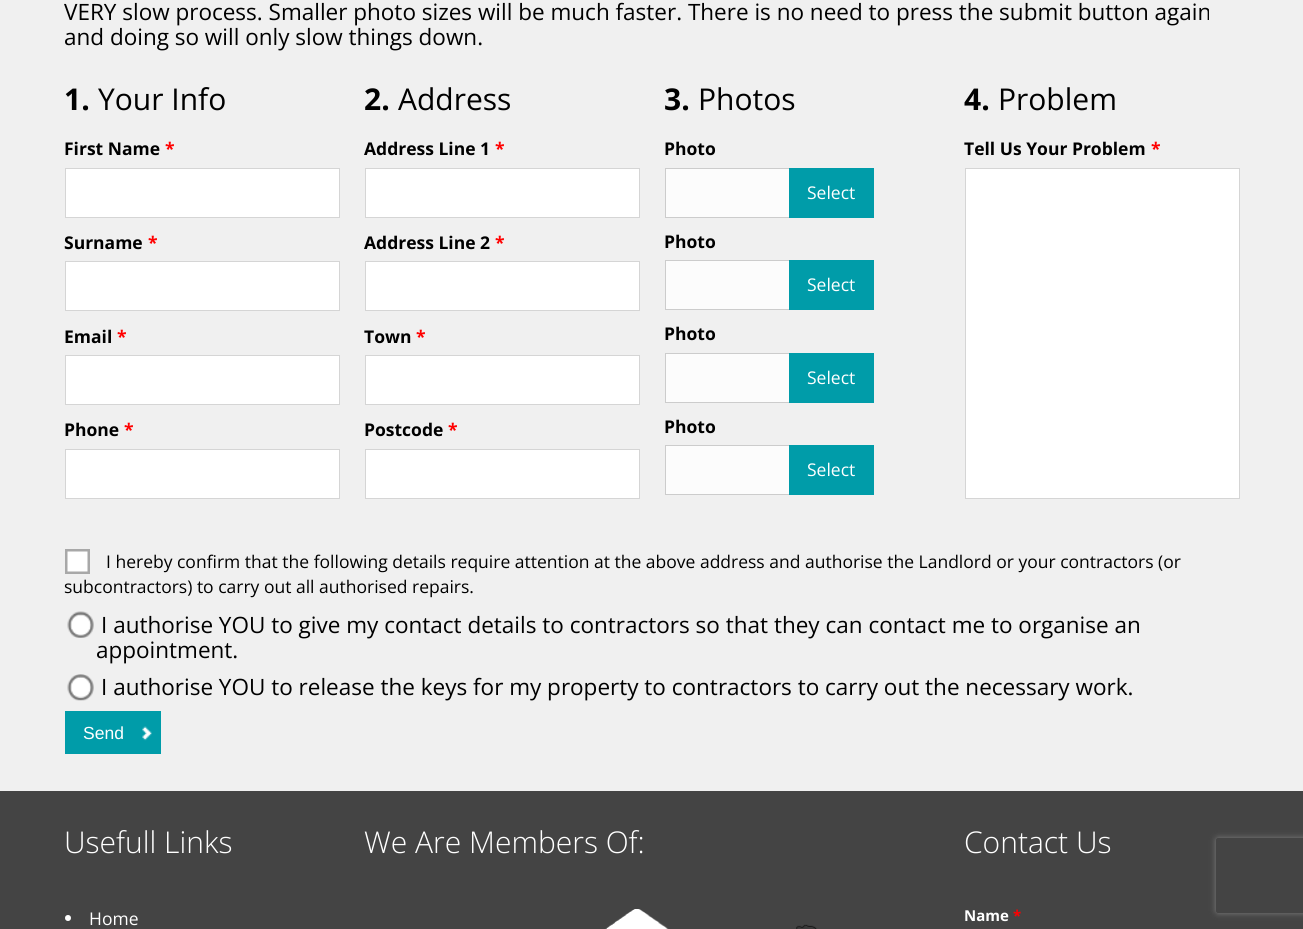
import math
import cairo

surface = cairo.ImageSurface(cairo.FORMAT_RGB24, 1303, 929)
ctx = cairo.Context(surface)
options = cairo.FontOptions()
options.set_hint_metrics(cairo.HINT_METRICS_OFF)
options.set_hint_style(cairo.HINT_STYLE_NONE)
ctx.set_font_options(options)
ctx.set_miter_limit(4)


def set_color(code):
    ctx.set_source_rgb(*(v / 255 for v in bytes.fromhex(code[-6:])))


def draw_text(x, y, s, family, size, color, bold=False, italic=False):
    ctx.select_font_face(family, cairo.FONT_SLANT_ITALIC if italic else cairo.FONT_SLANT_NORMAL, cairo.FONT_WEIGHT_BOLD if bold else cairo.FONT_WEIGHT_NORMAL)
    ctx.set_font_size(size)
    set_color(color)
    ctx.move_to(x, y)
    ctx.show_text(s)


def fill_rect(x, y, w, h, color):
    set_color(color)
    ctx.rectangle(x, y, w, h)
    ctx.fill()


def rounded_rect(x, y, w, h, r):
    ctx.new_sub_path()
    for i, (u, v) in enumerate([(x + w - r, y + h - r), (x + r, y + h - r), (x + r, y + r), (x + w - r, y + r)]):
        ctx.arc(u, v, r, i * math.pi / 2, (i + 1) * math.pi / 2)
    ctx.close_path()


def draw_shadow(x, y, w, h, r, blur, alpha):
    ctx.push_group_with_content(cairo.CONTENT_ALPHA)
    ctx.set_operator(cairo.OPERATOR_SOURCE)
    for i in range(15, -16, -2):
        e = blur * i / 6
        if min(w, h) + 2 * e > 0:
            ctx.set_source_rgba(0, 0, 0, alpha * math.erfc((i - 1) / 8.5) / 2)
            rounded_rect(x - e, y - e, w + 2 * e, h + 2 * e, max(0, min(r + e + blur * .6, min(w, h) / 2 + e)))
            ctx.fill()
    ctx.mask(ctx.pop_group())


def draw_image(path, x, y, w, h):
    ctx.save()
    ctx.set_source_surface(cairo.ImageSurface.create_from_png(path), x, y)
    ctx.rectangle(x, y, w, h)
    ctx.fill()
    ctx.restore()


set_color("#f0f0f0")
ctx.paint()
draw_text(64, 20, "VERY slow process. Smaller photo sizes will be much faster. There is no need to press the submit button again", "Open Sans", 22.5, "#000000")
draw_text(64, 45, "and doing so will only slow things down.", "Open Sans", 22.5, "#000000")
draw_text(64, 110, "1.", "Open Sans", 30, "#000000", bold=True)
draw_text(98, 110, "Your Info", "Open Sans", 30, "#000000")
draw_text(64, 155, "First Name", "Open Sans", 17.5, "#000000", bold=True)
draw_text(165, 155, "*", "Open Sans", 17.5, "#ff0000", bold=True)
set_color("#ffffff")
ctx.rectangle(65.5, 168.5, 274, 49)
ctx.fill_preserve()
set_color("#d5d5d5")
ctx.set_line_width(1)
ctx.stroke()
draw_text(64, 249, "Surname", "Open Sans", 17.5, "#000000", bold=True)
draw_text(148, 249, "*", "Open Sans", 17.5, "#ff0000", bold=True)
set_color("#ffffff")
ctx.rectangle(65.5, 261.5, 274, 49)
ctx.fill_preserve()
set_color("#d5d5d5")
ctx.stroke()
draw_text(64, 343, "Email", "Open Sans", 17.5, "#000000", bold=True)
draw_text(117, 343, "*", "Open Sans", 17.5, "#ff0000", bold=True)
set_color("#ffffff")
ctx.rectangle(65.5, 355.5, 274, 49)
ctx.fill_preserve()
set_color("#d5d5d5")
ctx.stroke()
draw_text(64, 436, "Phone", "Open Sans", 17.5, "#000000", bold=True)
draw_text(124, 436, "*", "Open Sans", 17.5, "#ff0000", bold=True)
set_color("#ffffff")
ctx.rectangle(65.5, 449.5, 274, 49)
ctx.fill_preserve()
set_color("#d5d5d5")
ctx.stroke()
draw_text(364, 110, "2.", "Open Sans", 30, "#000000", bold=True)
draw_text(398, 110, "Address", "Open Sans", 30, "#000000")
draw_text(364, 155, "Address Line 1", "Open Sans", 17.5, "#000000", bold=True)
draw_text(495, 155, "*", "Open Sans", 17.5, "#ff0000", bold=True)
set_color("#ffffff")
ctx.rectangle(365.5, 168.5, 274, 49)
ctx.fill_preserve()
set_color("#d5d5d5")
ctx.stroke()
draw_text(364, 249, "Address Line 2", "Open Sans", 17.5, "#000000", bold=True)
draw_text(495, 249, "*", "Open Sans", 17.5, "#ff0000", bold=True)
set_color("#ffffff")
ctx.rectangle(365.5, 261.5, 274, 49)
ctx.fill_preserve()
set_color("#d5d5d5")
ctx.stroke()
draw_text(364, 343, "Town", "Open Sans", 17.5, "#000000", bold=True)
draw_text(416, 343, "*", "Open Sans", 17.5, "#ff0000", bold=True)
set_color("#ffffff")
ctx.rectangle(365.5, 355.5, 274, 49)
ctx.fill_preserve()
set_color("#d5d5d5")
ctx.stroke()
draw_text(364, 436, "Postcode", "Open Sans", 17.5, "#000000", bold=True)
draw_text(448, 436, "*", "Open Sans", 17.5, "#ff0000", bold=True)
set_color("#ffffff")
ctx.rectangle(365.5, 449.5, 274, 49)
ctx.fill_preserve()
set_color("#d5d5d5")
ctx.stroke()
draw_text(664, 110, "3.", "Open Sans", 30, "#000000", bold=True)
draw_text(698, 110, "Photos", "Open Sans", 30, "#000000")
draw_text(664, 155, "Photo", "Open Sans", 17.5, "#000000", bold=True)
set_color("#fcfcfc")
ctx.rectangle(665.5, 168.5, 124, 49)
ctx.fill_preserve()
set_color("#cccccc")
ctx.stroke()
fill_rect(789, 168, 85, 50, "#009ca9")
draw_text(807, 199, "Select", "Open Sans", 17.5, "#ffffff")
draw_text(664, 248, "Photo", "Open Sans", 17.5, "#000000", bold=True)
set_color("#fcfcfc")
ctx.rectangle(665.5, 260.5, 124, 49)
ctx.fill_preserve()
set_color("#cccccc")
ctx.stroke()
fill_rect(789, 260, 85, 50, "#009ca9")
draw_text(807, 291, "Select", "Open Sans", 17.5, "#ffffff")
draw_text(664, 340, "Photo", "Open Sans", 17.5, "#000000", bold=True)
set_color("#fcfcfc")
ctx.rectangle(665.5, 353.5, 124, 49)
ctx.fill_preserve()
set_color("#cccccc")
ctx.stroke()
fill_rect(789, 353, 85, 50, "#009ca9")
draw_text(807, 384, "Select", "Open Sans", 17.5, "#ffffff")
draw_text(664, 433, "Photo", "Open Sans", 17.5, "#000000", bold=True)
set_color("#fcfcfc")
ctx.rectangle(665.5, 445.5, 124, 49)
ctx.fill_preserve()
set_color("#cccccc")
ctx.stroke()
fill_rect(789, 445, 85, 50, "#009ca9")
draw_text(807, 476, "Select", "Open Sans", 17.5, "#ffffff")
draw_text(964, 110, "4.", "Open Sans", 30, "#000000", bold=True)
draw_text(998, 110, "Problem", "Open Sans", 30, "#000000")
draw_text(964, 155, "Tell Us Your Problem", "Open Sans", 17.5, "#000000", bold=True)
draw_text(1151, 155, "*", "Open Sans", 17.5, "#ff0000", bold=True)
set_color("#ffffff")
ctx.rectangle(965.5, 168.5, 274, 330)
ctx.fill_preserve()
set_color("#d5d5d5")
ctx.stroke()
draw_image("assets/img1.png", 65, 549, 25, 25)
draw_text(106, 568, "I hereby confirm that the following details require attention at the above address and authorise the Landlord or your contractors (or", "Open Sans", 17.5, "#000000")
draw_text(64, 593, "subcontractors) to carry out all authorised repairs.", "Open Sans", 17.5, "#000000")
draw_image("assets/img2.png", 67, 611, 27, 27)
draw_text(101, 633, "I authorise YOU to give my contact details to contractors so that they can contact me to organise an", "Open Sans", 22.5, "#000000")
draw_text(96, 658, "appointment.", "Open Sans", 22.5, "#000000")
draw_image("assets/img3.png", 67, 674, 27, 27)
draw_text(101, 695, "I authorise YOU to release the keys for my property to contractors to carry out the necessary work.", "Open Sans", 22.5, "#000000")
fill_rect(65, 711, 96, 43, "#009ca9")
draw_image("assets/img4.png", 142, 726, 10, 15)
draw_text(83, 739, "Send", "Liberation Sans", 17.5, "#ffffff")
fill_rect(0, 791, 1303, 138, "#444444")
draw_text(64, 853, "Usefull Links", "Open Sans Light", 30, "#ffffff")
ctx.new_path()
ctx.arc(68, 918, 3, 0, 2 * math.pi)
ctx.fill()
draw_text(89, 925, "Home", "Open Sans", 17.5, "#ffffff")
draw_text(364, 853, "We Are Members Of:", "Open Sans Light", 30, "#ffffff")
draw_image("assets/img5.png", 605, 909, 212, 20)
draw_text(964, 853, "Contact Us", "Open Sans Light", 30, "#ffffff")
draw_text(964, 921, "Name", "Open Sans", 15, "#ffffff", bold=True)
draw_text(1013, 921, "*", "Open Sans", 15, "#ff0000", bold=True)
ctx.save()
ctx.set_fill_rule(cairo.FILL_RULE_EVEN_ODD)
ctx.new_path()
ctx.move_to(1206, 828)
ctx.line_to(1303, 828)
ctx.line_to(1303, 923)
ctx.line_to(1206, 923)
ctx.close_path()
ctx.move_to(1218.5, 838)
ctx.line_to(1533.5, 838)
ctx.curve_to(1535, 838, 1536, 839, 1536, 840.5)
ctx.line_to(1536, 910.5)
ctx.curve_to(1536, 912, 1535, 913, 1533.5, 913)
ctx.line_to(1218.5, 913)
ctx.curve_to(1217, 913, 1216, 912, 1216, 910.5)
ctx.line_to(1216, 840.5)
ctx.curve_to(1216, 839, 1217, 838, 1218.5, 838)
ctx.close_path()
ctx.clip()
set_color("#808080")
draw_shadow(1216, 838, 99, 75, 2.5, 3, 1)
ctx.restore()
surface.write_to_png("output.png")
